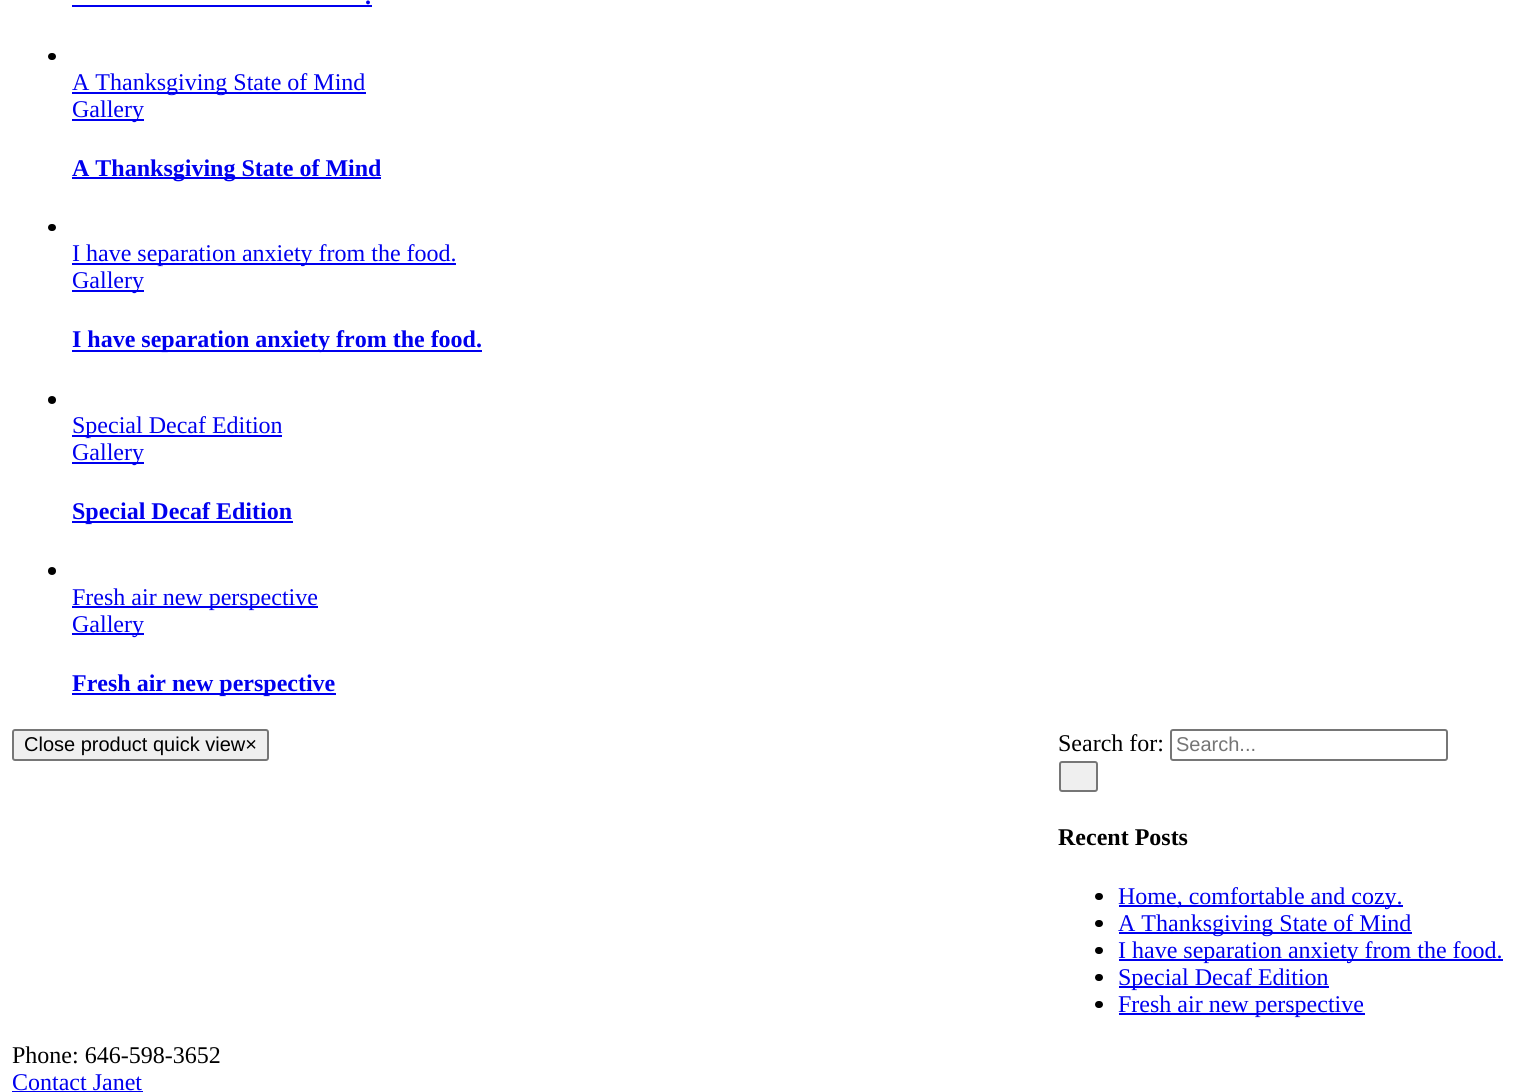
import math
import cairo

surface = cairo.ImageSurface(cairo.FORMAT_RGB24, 1515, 1092)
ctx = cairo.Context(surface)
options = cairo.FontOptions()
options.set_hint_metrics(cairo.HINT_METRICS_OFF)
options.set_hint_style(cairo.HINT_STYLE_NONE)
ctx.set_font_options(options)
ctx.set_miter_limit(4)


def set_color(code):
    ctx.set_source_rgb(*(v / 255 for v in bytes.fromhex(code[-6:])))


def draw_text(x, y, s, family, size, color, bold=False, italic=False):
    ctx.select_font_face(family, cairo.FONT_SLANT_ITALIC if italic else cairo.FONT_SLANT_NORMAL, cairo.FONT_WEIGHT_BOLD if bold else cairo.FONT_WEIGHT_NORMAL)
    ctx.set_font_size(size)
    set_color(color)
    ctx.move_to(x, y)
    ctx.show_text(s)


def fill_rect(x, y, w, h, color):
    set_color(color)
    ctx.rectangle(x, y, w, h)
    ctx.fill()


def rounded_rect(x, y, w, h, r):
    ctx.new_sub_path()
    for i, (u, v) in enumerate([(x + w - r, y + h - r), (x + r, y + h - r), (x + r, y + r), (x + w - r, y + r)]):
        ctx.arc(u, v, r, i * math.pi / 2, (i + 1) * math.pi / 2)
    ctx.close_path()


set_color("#ffffff")
ctx.paint()
draw_text(365, 4, ".", "Liberation Serif", 24, "#0000ee", bold=True)
fill_rect(72, 5, 300, 2, "#0000ee")
set_color("#000000")
rounded_rect(48, 53, 8, 7, 3.5)
ctx.fill()
fill_rect(72, 92, 294, 2, "#0000ee")
draw_text(72, 90, "A Thanksgiving State of Mind", "Liberation Serif", 24, "#0000ee")
fill_rect(72, 119, 72, 2, "#0000ee")
draw_text(72, 117, "Gallery", "Liberation Serif", 24, "#0000ee")
fill_rect(72, 177, 309, 2, "#0000ee")
draw_text(72, 176, "A Thanksgiving State of Mind", "Liberation Serif", 24, "#0000ee", bold=True)
set_color("#000000")
rounded_rect(48, 224, 8, 7, 3.5)
ctx.fill()
fill_rect(72, 263, 384, 2, "#0000ee")
draw_text(72, 261, "I have separation anxiety from the food.", "Liberation Serif", 24, "#0000ee")
fill_rect(72, 290, 72, 2, "#0000ee")
draw_text(72, 288, "Gallery", "Liberation Serif", 24, "#0000ee")
fill_rect(72, 350, 410, 2, "#0000ee")
draw_text(72, 347, "I have separation anxiety from the food.", "Liberation Serif", 24, "#0000ee", bold=True)
set_color("#000000")
ctx.new_path()
ctx.arc(52, 400, 4, 0, 2 * math.pi)
ctx.fill()
fill_rect(72, 435, 210, 2, "#0000ee")
draw_text(72, 433, "Special Decaf Edition", "Liberation Serif", 24, "#0000ee")
fill_rect(72, 462, 72, 2, "#0000ee")
draw_text(72, 460, "Gallery", "Liberation Serif", 24, "#0000ee")
fill_rect(72, 521, 221, 2, "#0000ee")
draw_text(72, 519, "Special Decaf Edition", "Liberation Serif", 24, "#0000ee", bold=True)
set_color("#000000")
ctx.new_path()
ctx.arc(52, 571, 4, 0, 2 * math.pi)
ctx.fill()
fill_rect(72, 606, 246, 2, "#0000ee")
draw_text(72, 605, "Fresh air new perspective", "Liberation Serif", 24, "#0000ee")
fill_rect(72, 633, 72, 2, "#0000ee")
draw_text(72, 632, "Gallery", "Liberation Serif", 24, "#0000ee")
fill_rect(72, 693, 264, 2, "#0000ee")
draw_text(72, 691, "Fresh air new perspective", "Liberation Serif", 24, "#0000ee", bold=True)
set_color("#efefef")
rounded_rect(13, 730, 255, 30, 2)
ctx.fill_preserve()
set_color("#767676")
ctx.stroke()
draw_text(24, 751, "Close product quick view×", "Liberation Sans", 20, "#000000")
draw_text(1058, 751, "Search for:", "Liberation Serif", 24, "#000000")
rounded_rect(1171, 730, 276, 30, 2)
set_color("#767676")
ctx.stroke()
draw_text(1176, 751, "Search...", "Liberation Sans", 20, "#757575")
set_color("#efefef")
rounded_rect(1060, 762, 37, 29, 2)
ctx.fill_preserve()
set_color("#767676")
ctx.stroke()
draw_text(1058, 845, "Recent Posts", "Liberation Serif", 24, "#000000", bold=True)
rounded_rect(1095, 893, 8, 7, 3.5)
ctx.fill()
fill_rect(1119, 905, 284, 2, "#0000ee")
draw_text(1118, 904, "Home, comfortable and cozy.", "Liberation Serif", 24, "#0000ee")
set_color("#000000")
rounded_rect(1095, 920, 8, 7, 3.5)
ctx.fill()
fill_rect(1119, 932, 293, 2, "#0000ee")
draw_text(1118, 931, "A Thanksgiving State of Mind", "Liberation Serif", 24, "#0000ee")
set_color("#000000")
rounded_rect(1095, 947, 8, 7, 3.5)
ctx.fill()
fill_rect(1119, 959, 384, 2, "#0000ee")
draw_text(1118, 958, "I have separation anxiety from the food.", "Liberation Serif", 24, "#0000ee")
set_color("#000000")
rounded_rect(1095, 974, 8, 7, 3.5)
ctx.fill()
fill_rect(1119, 986, 210, 2, "#0000ee")
draw_text(1118, 985, "Special Decaf Edition", "Liberation Serif", 24, "#0000ee")
set_color("#000000")
rounded_rect(1095, 1001, 8, 7, 3.5)
ctx.fill()
fill_rect(1119, 1013, 246, 2, "#0000ee")
draw_text(1118, 1012, "Fresh air new perspective", "Liberation Serif", 24, "#0000ee")
draw_text(12, 1063, "Phone: 646-598-3652", "Liberation Serif", 24, "#000000")
draw_text(12, 1090, "Contact Janet", "Liberation Serif", 24, "#0000ee")
fill_rect(12, 1091, 131, 1, "#0000ee")
surface.write_to_png("output.png")
